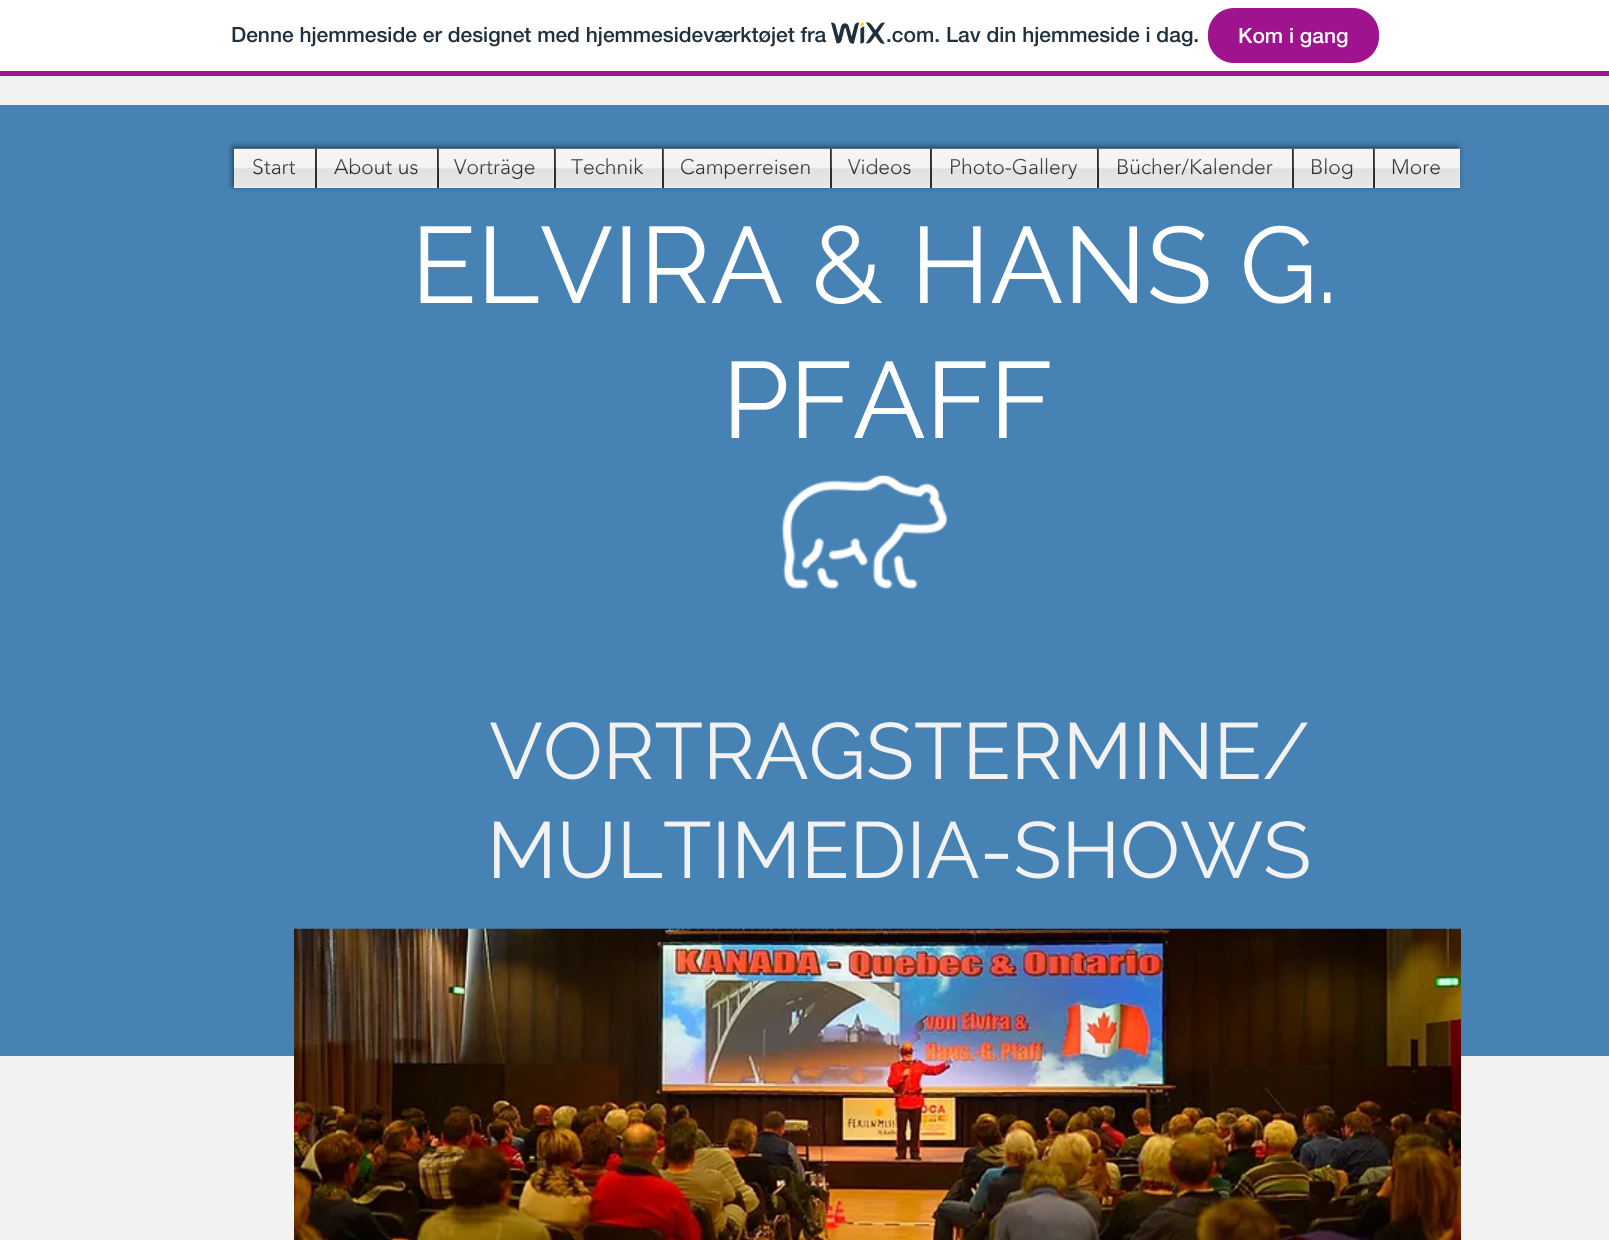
import math
import cairo

surface = cairo.ImageSurface(cairo.FORMAT_RGB24, 1609, 1240)
ctx = cairo.Context(surface)
options = cairo.FontOptions()
options.set_hint_metrics(cairo.HINT_METRICS_OFF)
options.set_hint_style(cairo.HINT_STYLE_NONE)
ctx.set_font_options(options)
ctx.set_miter_limit(4)


def set_color(code):
    ctx.set_source_rgb(*(v / 255 for v in bytes.fromhex(code[-6:])))


def draw_text(x, y, s, family, size, color, bold=False, italic=False):
    ctx.select_font_face(family, cairo.FONT_SLANT_ITALIC if italic else cairo.FONT_SLANT_NORMAL, cairo.FONT_WEIGHT_BOLD if bold else cairo.FONT_WEIGHT_NORMAL)
    ctx.set_font_size(size)
    set_color(color)
    ctx.move_to(x, y)
    ctx.show_text(s)


def fill_rect(x, y, w, h, color):
    set_color(color)
    ctx.rectangle(x, y, w, h)
    ctx.fill()


def rounded_rect(x, y, w, h, r):
    ctx.new_sub_path()
    for i, (u, v) in enumerate([(x + w - r, y + h - r), (x + r, y + h - r), (x + r, y + r), (x + w - r, y + r)]):
        ctx.arc(u, v, r, i * math.pi / 2, (i + 1) * math.pi / 2)
    ctx.close_path()


def draw_shadow(x, y, w, h, r, blur, alpha):
    ctx.push_group_with_content(cairo.CONTENT_ALPHA)
    ctx.set_operator(cairo.OPERATOR_SOURCE)
    for i in range(15, -16, -2):
        e = blur * i / 6
        if min(w, h) + 2 * e > 0:
            ctx.set_source_rgba(0, 0, 0, alpha * math.erfc((i - 1) / 8.5) / 2)
            rounded_rect(x - e, y - e, w + 2 * e, h + 2 * e, max(0, min(r + e + blur * .6, min(w, h) / 2 + e)))
            ctx.fill()
    ctx.mask(ctx.pop_group())


def draw_image(path, x, y, w, h):
    ctx.save()
    ctx.set_source_surface(cairo.ImageSurface.create_from_png(path), x, y)
    ctx.rectangle(x, y, w, h)
    ctx.fill()
    ctx.restore()


set_color("#ffffff")
ctx.paint()
fill_rect(0, 71, 1609, 5, "#a0138e")
draw_text(231, 42, "Denne hjemmeside er designet med hjemmesideværktøjet fra", "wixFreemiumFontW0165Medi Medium", 21, "#20303c")
draw_image("assets/img1.png", 831, 22, 54, 22)
draw_text(886, 42, ".com. Lav din hjemmeside i dag.", "wixFreemiumFontW0165Medi Medium", 21, "#20303c")
set_color("#a0138e")
rounded_rect(1209, 9, 169, 53, 25)
ctx.fill_preserve()
ctx.stroke()
draw_text(1238, 43, "Kom i gang", "wixFreemiumFontW0165Medi Medium", 21, "#ffffff")
fill_rect(0, 76, 1609, 1164, "#f2f2f2")
fill_rect(0, 105, 1609, 951, "#4682b4")
set_color("#000000")
draw_shadow(233, 147, 1225, 39, 0, 3, 0.6)
draw_image("assets/img2.png", 234, 148, 1226, 1)
fill_rect(234, 149, 81, 39, "#f2f2f2")
draw_text(252, 174, "Start", "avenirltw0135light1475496 Light", 21, "#2e2e2e")
draw_image("assets/img3.png", 234, 148, 81, 39)
fill_rect(317, 149, 120, 39, "#f2f2f2")
fill_rect(315, 149, 2, 39, "#2e2e2e")
draw_text(334, 174, "About us", "avenirltw0135light1475496 Light", 21, "#2e2e2e")
draw_image("assets/img4.png", 316, 148, 121, 39)
fill_rect(439, 149, 115, 39, "#f2f2f2")
fill_rect(437, 149, 2, 39, "#2e2e2e")
draw_text(454, 174, "Vorträge", "avenirltw0135light1475496 Light", 21, "#2e2e2e")
draw_image("assets/img5.png", 438, 148, 116, 39)
fill_rect(556, 149, 106, 39, "#f2f2f2")
fill_rect(554, 149, 2, 39, "#2e2e2e")
draw_text(571, 174, "Technik", "avenirltw0135light1475496 Light", 21, "#2e2e2e")
draw_image("assets/img6.png", 555, 148, 107, 39)
fill_rect(664, 149, 166, 39, "#f2f2f2")
fill_rect(662, 149, 2, 39, "#2e2e2e")
draw_text(680, 174, "Camperreisen", "avenirltw0135light1475496 Light", 21, "#2e2e2e")
draw_image("assets/img7.png", 663, 148, 167, 39)
fill_rect(832, 149, 98, 39, "#f2f2f2")
fill_rect(830, 149, 2, 39, "#2e2e2e")
draw_text(848, 174, "Videos", "avenirltw0135light1475496 Light", 21, "#2e2e2e")
draw_image("assets/img8.png", 831, 148, 99, 39)
fill_rect(932, 149, 165, 39, "#f2f2f2")
fill_rect(930, 149, 2, 39, "#2e2e2e")
draw_text(949, 174, "Photo-Gallery", "avenirltw0135light1475496 Light", 21, "#2e2e2e")
draw_image("assets/img9.png", 931, 148, 166, 39)
fill_rect(1099, 149, 193, 39, "#f2f2f2")
fill_rect(1097, 149, 2, 39, "#2e2e2e")
draw_text(1116, 174, "Bücher/Kalender", "avenirltw0135light1475496 Light", 21, "#2e2e2e")
draw_image("assets/img10.png", 1098, 148, 194, 39)
fill_rect(1294, 149, 79, 39, "#f2f2f2")
fill_rect(1292, 149, 2, 39, "#2e2e2e")
draw_text(1310, 174, "Blog", "avenirltw0135light1475496 Light", 21, "#2e2e2e")
draw_image("assets/img11.png", 1293, 148, 80, 39)
fill_rect(1375, 149, 85, 39, "#f2f2f2")
fill_rect(1373, 149, 2, 39, "#2e2e2e")
draw_text(1391, 174, "More", "avenirltw0135light1475496 Light", 21, "#2e2e2e")
draw_image("assets/img12.png", 1374, 148, 86, 39)
draw_text(411, 303, "ELVIRA & HANS G.", "Raleway", 108, "#ffffff")
draw_text(722, 438, "PFAFF", "Raleway", 108, "#ffffff")
draw_image("assets/img13.png", 781, 475, 167, 115)
draw_text(489, 779, "VORTRAGSTERMINE/", "Raleway", 79.5, "#f2f2f2")
draw_text(487, 878, "MULTIMEDIA-SHOWS", "Raleway", 79.5, "#f2f2f2")
draw_image("assets/img14.png", 294, 928, 1167, 312)
surface.write_to_png("output.png")
